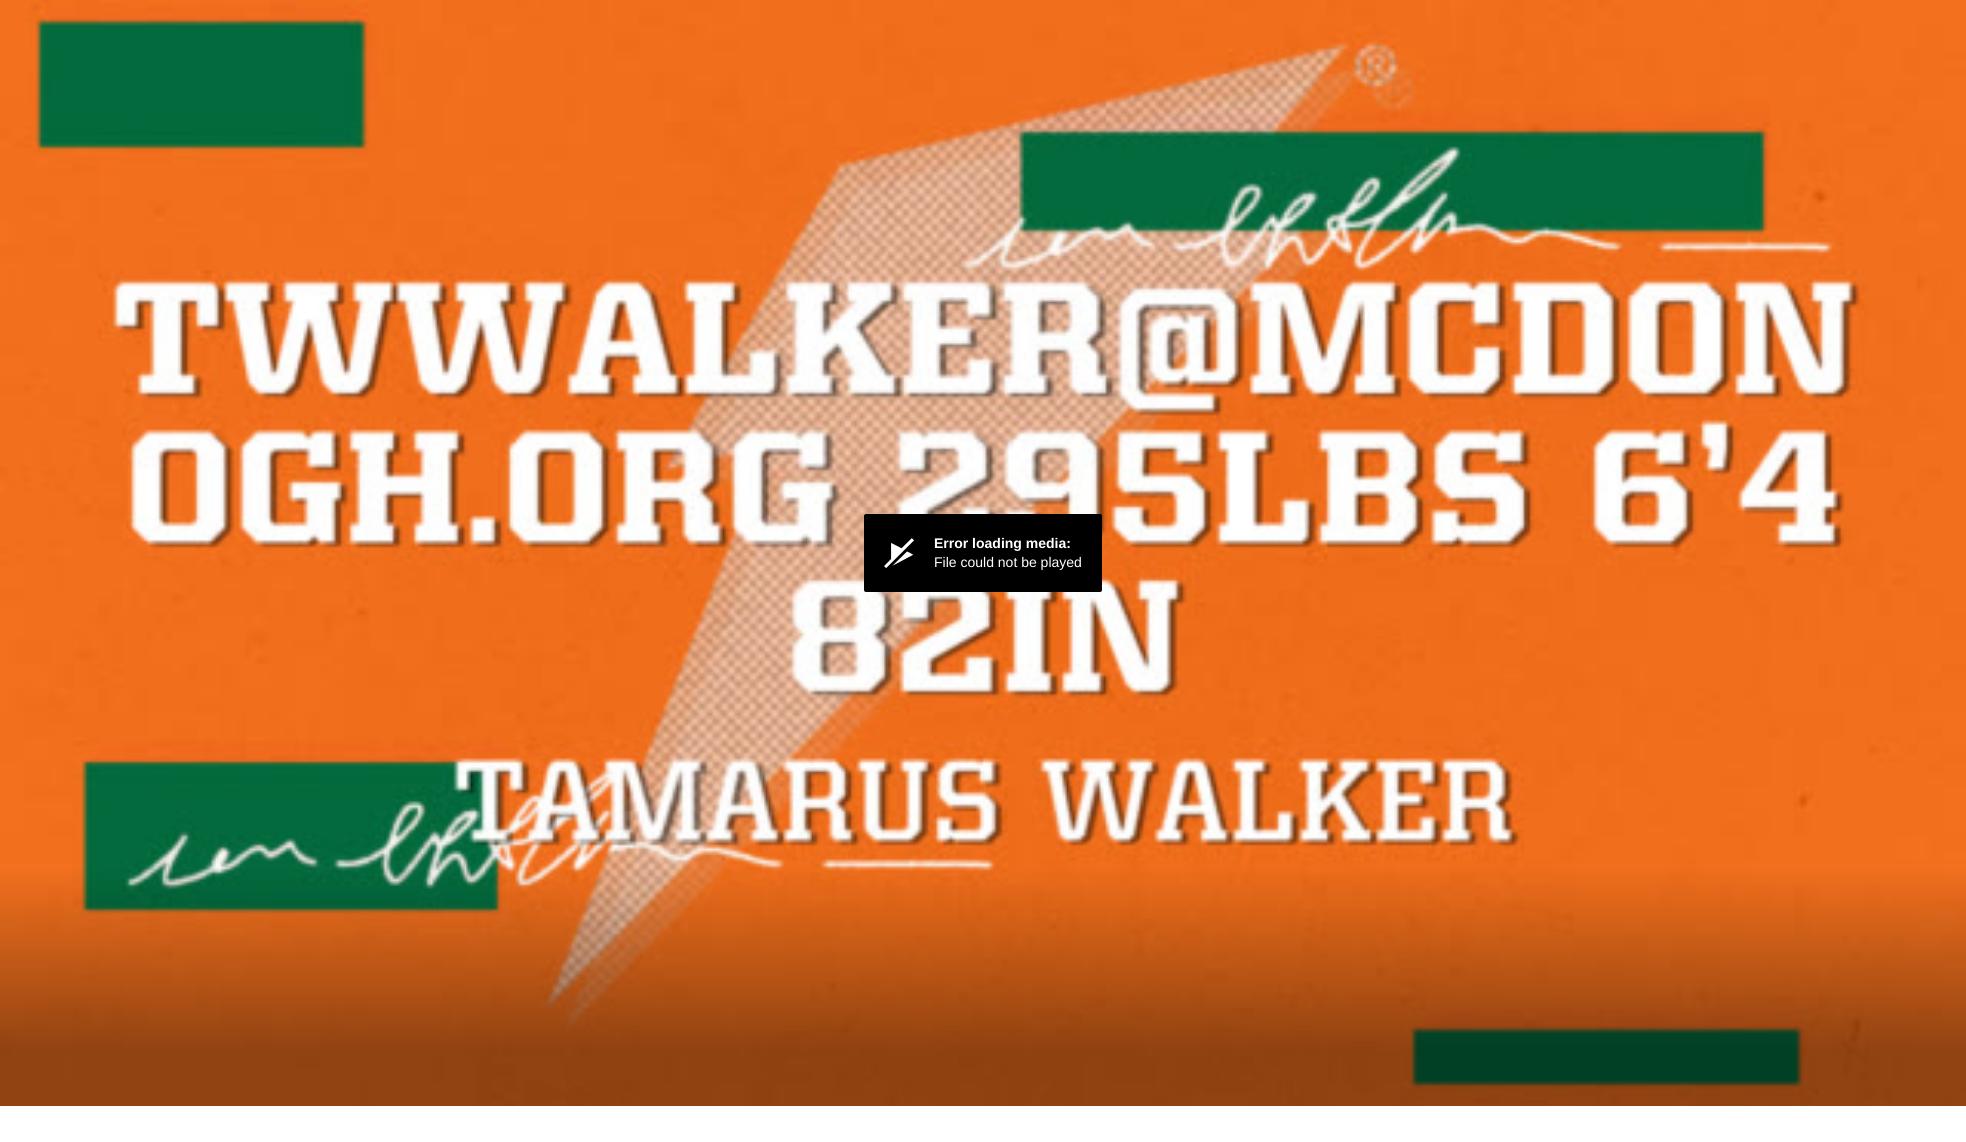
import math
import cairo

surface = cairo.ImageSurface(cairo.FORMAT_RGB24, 1966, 1142)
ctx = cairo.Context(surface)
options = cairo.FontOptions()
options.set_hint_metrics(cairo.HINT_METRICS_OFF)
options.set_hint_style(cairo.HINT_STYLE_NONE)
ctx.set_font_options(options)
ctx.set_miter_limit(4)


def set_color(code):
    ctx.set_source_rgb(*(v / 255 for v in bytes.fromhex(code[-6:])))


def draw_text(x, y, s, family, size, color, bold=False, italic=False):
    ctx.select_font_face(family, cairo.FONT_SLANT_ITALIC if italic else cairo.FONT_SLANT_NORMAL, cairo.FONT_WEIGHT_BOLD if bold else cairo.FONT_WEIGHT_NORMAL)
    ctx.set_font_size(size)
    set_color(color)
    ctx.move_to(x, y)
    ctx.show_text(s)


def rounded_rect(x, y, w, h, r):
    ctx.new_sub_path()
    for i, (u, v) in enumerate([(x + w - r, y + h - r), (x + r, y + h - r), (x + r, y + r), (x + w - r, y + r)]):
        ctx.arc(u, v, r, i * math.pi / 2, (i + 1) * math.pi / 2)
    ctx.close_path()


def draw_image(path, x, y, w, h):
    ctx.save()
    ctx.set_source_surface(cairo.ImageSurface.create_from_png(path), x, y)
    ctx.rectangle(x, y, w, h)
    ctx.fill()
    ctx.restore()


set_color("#ffffff")
ctx.paint()
draw_image("assets/img1.png", 0, 0, 1966, 1106)
set_color("#000000")
rounded_rect(864, 514, 238, 78, 2)
ctx.fill()
draw_image("assets/img2.png", 884, 538, 30, 30)
draw_text(934, 548, "Error loading media:", "Liberation Sans", 14, "#ffffff", bold=True)
draw_text(934, 567, "File could not be played", "Liberation Sans", 14, "#ffffff")
surface.write_to_png("output.png")
